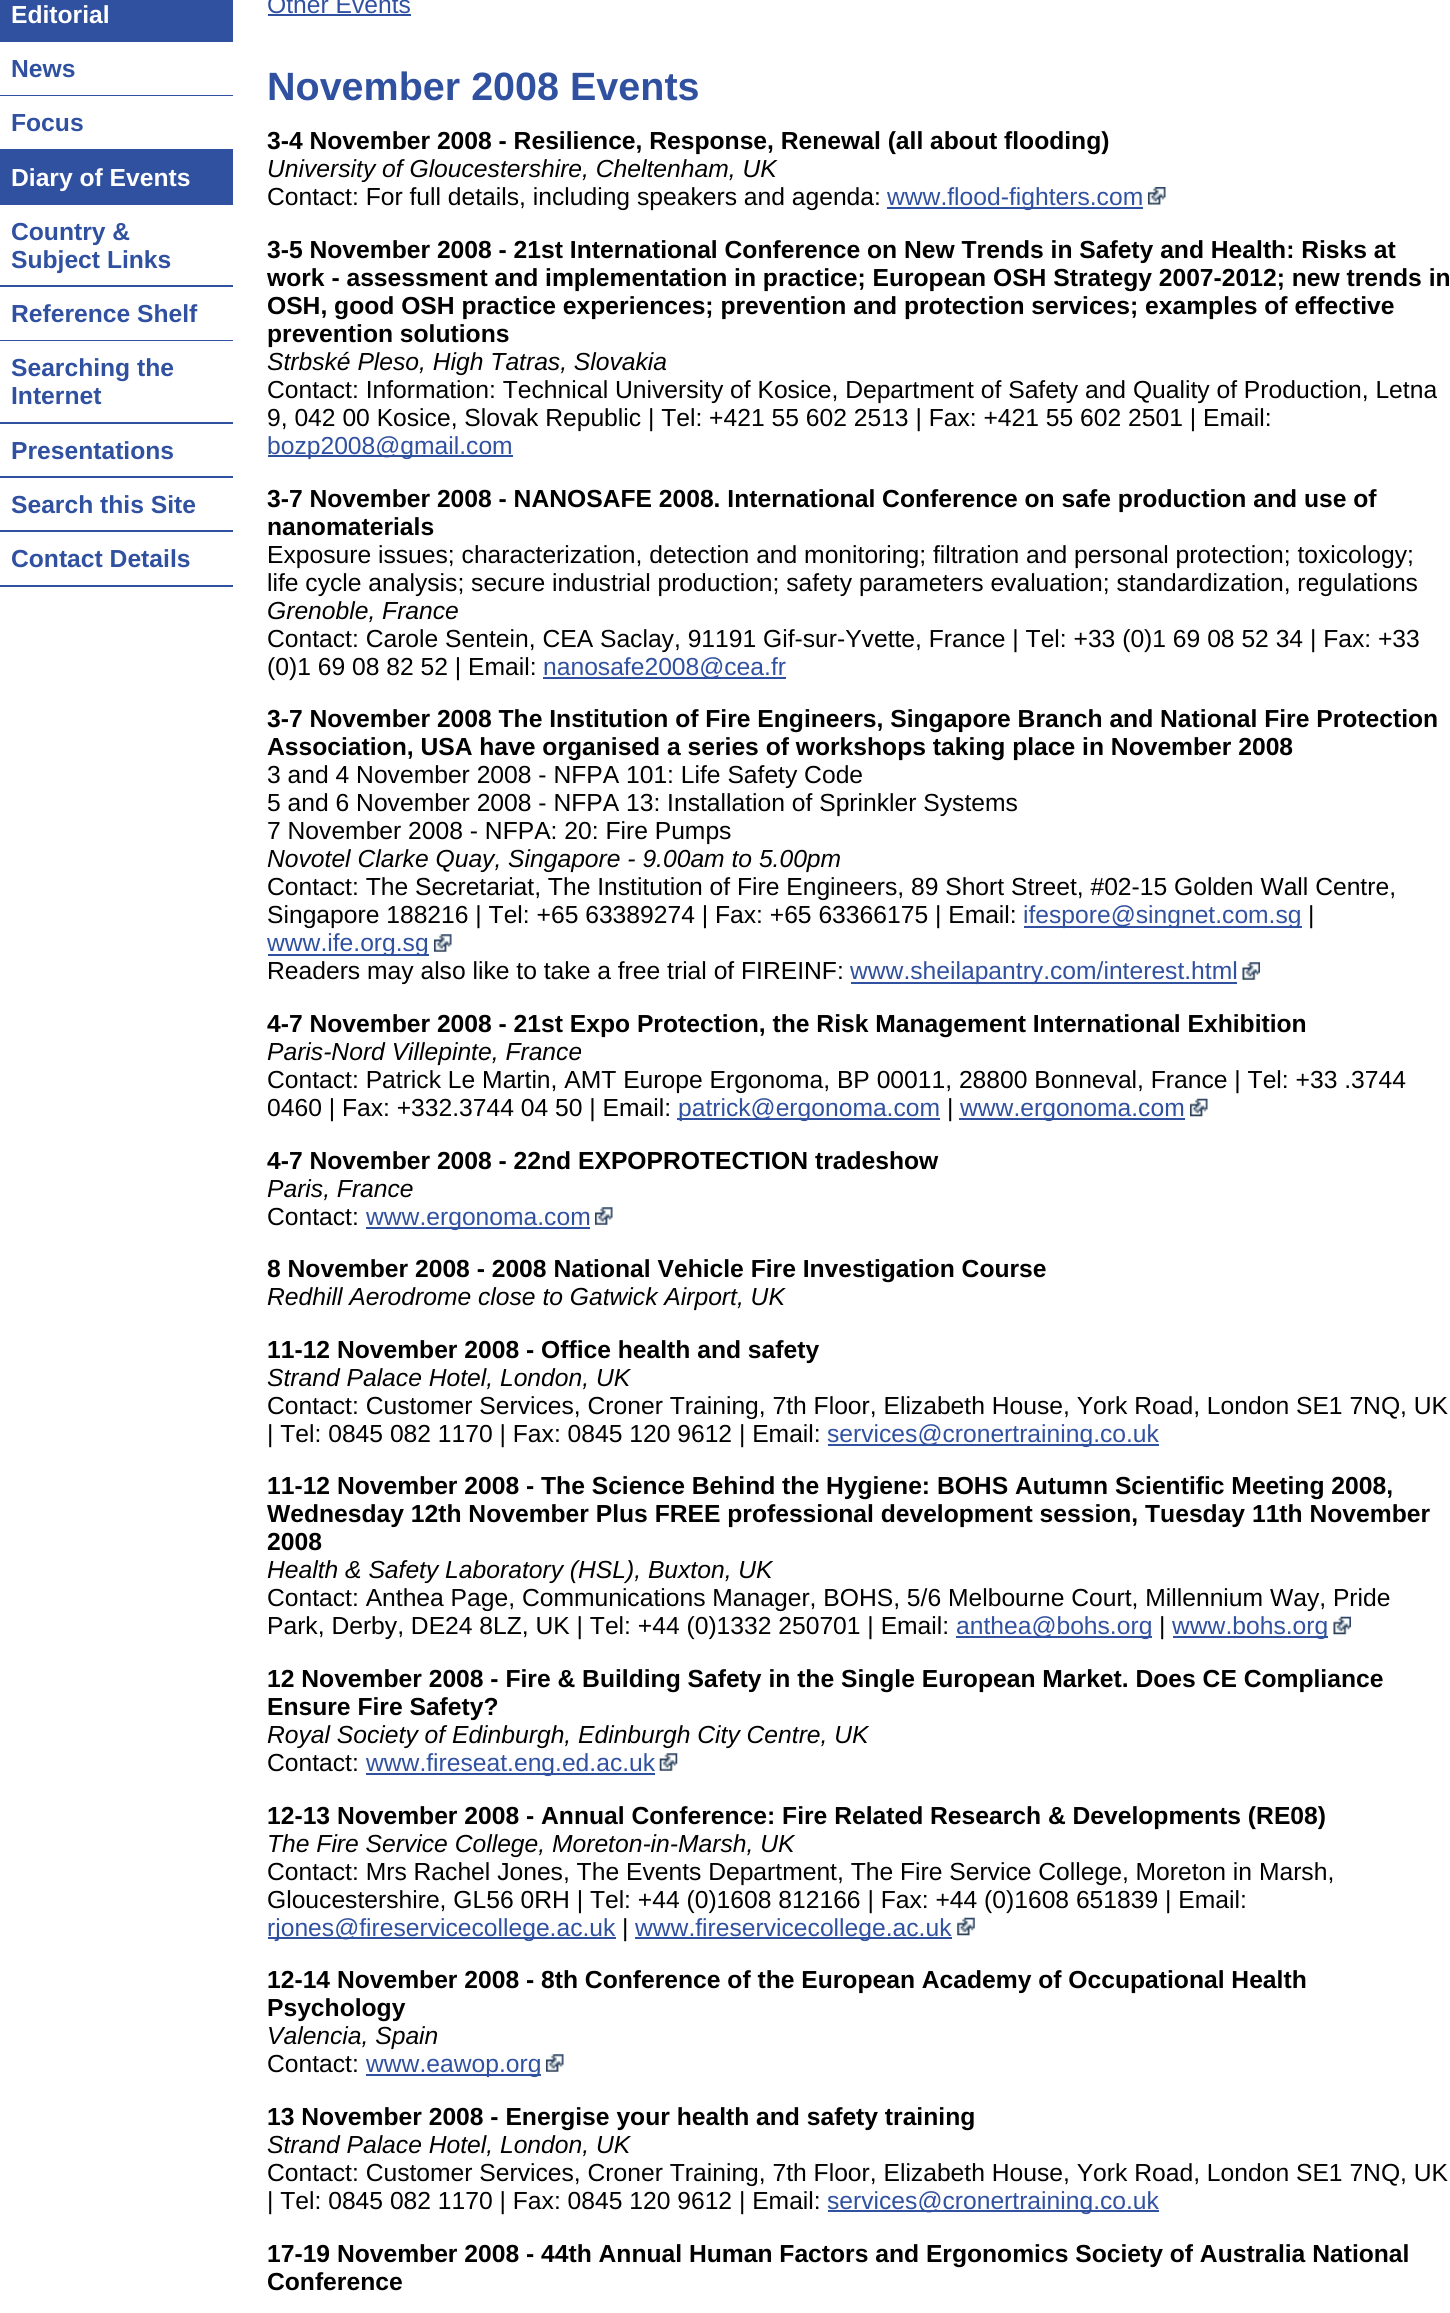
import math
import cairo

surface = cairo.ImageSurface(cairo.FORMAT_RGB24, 1450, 2313)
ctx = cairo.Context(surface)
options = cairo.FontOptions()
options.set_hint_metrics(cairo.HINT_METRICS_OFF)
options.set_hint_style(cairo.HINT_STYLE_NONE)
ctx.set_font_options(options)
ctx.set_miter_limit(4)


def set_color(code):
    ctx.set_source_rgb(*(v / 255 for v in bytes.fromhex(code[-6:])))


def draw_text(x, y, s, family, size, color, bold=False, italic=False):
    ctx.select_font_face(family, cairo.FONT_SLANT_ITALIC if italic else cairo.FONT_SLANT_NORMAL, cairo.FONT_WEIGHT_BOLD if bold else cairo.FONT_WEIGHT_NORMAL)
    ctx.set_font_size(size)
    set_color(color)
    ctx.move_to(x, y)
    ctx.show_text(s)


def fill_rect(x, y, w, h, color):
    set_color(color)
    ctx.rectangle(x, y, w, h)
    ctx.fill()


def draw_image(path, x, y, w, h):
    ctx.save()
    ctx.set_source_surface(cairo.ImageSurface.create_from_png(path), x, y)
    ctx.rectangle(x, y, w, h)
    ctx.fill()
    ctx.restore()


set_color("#ffffff")
ctx.paint()
fill_rect(0, 0, 233, 42, "#3050a0")
draw_text(11, 23, "Editorial", "Liberation Sans", 24.65, "#ffffff", bold=True)
fill_rect(0, 95, 233, 1, "#3050a0")
draw_text(11, 77, "News", "Liberation Sans", 24.65, "#3050a0", bold=True)
fill_rect(0, 149, 233, 56, "#3050a0")
draw_text(11, 131, "Focus", "Liberation Sans", 24.65, "#3050a0", bold=True)
draw_text(11, 186, "Diary of Events", "Liberation Sans", 24.65, "#ffffff", bold=True)
fill_rect(0, 285, 233, 2, "#3050a0")
draw_text(11, 240, "Country &", "Liberation Sans", 24.65, "#3050a0", bold=True)
draw_text(11, 268, "Subject Links", "Liberation Sans", 24.65, "#3050a0", bold=True)
fill_rect(0, 340, 233, 1, "#3050a0")
draw_text(11, 322, "Reference Shelf", "Liberation Sans", 24.65, "#3050a0", bold=True)
fill_rect(0, 422, 233, 2, "#3050a0")
draw_text(11, 376, "Searching the", "Liberation Sans", 24.65, "#3050a0", bold=True)
draw_text(11, 404, "Internet", "Liberation Sans", 24.65, "#3050a0", bold=True)
fill_rect(0, 476, 233, 2, "#3050a0")
draw_text(11, 459, "Presentations", "Liberation Sans", 24.65, "#3050a0", bold=True)
fill_rect(0, 530, 233, 2, "#3050a0")
draw_text(11, 513, "Search this Site", "Liberation Sans", 24.65, "#3050a0", bold=True)
fill_rect(0, 585, 233, 2, "#3050a0")
draw_text(11, 567, "Contact Details", "Liberation Sans", 24.65, "#3050a0", bold=True)
draw_text(267, 13, "Other Events", "Liberation Sans", 24.65, "#3050a0")
fill_rect(268, 14, 143, 2, "#3050a0")
draw_text(267, 100, "November 2008 Events", "Liberation Sans", 39.5, "#3050a0", bold=True)
draw_text(267, 149, "3-4 November 2008 - Resilience, Response, Renewal (all about flooding)", "Liberation Sans", 24.65, "#000000", bold=True)
draw_text(267, 177, "University of Gloucestershire, Cheltenham, UK", "Liberation Sans", 24.65, "#000000", italic=True)
draw_text(267, 205, "Contact: For full details, including speakers and agenda:", "Liberation Sans", 24.65, "#000000")
fill_rect(887, 207, 256, 2, "#3050a0")
draw_text(887, 205, "www.flood-fighters.com", "Liberation Sans", 24.65, "#3050a0")
draw_image("assets/img1.png", 1148, 187, 18, 18)
draw_text(267, 258, "3-5 November 2008 - 21st International Conference on New Trends in Safety and Health: Risks at", "Liberation Sans", 24.65, "#000000", bold=True)
draw_text(267, 286, "work - assessment and implementation in practice; European OSH Strategy 2007-2012; new trends in", "Liberation Sans", 24.65, "#000000", bold=True)
draw_text(267, 314, "OSH, good OSH practice experiences; prevention and protection services; examples of effective", "Liberation Sans", 24.65, "#000000", bold=True)
draw_text(267, 342, "prevention solutions", "Liberation Sans", 24.65, "#000000", bold=True)
draw_text(267, 370, "Strbské Pleso, High Tatras, Slovakia", "Liberation Sans", 24.65, "#000000", italic=True)
draw_text(267, 398, "Contact: Information: Technical University of Kosice, Department of Safety and Quality of Production, Letna", "Liberation Sans", 24.65, "#000000")
draw_text(267, 426, "9, 042 00 Kosice, Slovak Republic | Tel: +421 55 602 2513 | Fax: +421 55 602 2501 | Email:", "Liberation Sans", 24.65, "#000000")
fill_rect(268, 455, 245, 2, "#3050a0")
draw_text(267, 454, "bozp2008@gmail.com", "Liberation Sans", 24.65, "#3050a0")
draw_text(267, 507, "3-7 November 2008 - NANOSAFE 2008. International Conference on safe production and use of", "Liberation Sans", 24.65, "#000000", bold=True)
draw_text(267, 535, "nanomaterials", "Liberation Sans", 24.65, "#000000", bold=True)
draw_text(267, 563, "Exposure issues; characterization, detection and monitoring; filtration and personal protection; toxicology;", "Liberation Sans", 24.65, "#000000")
draw_text(267, 591, "life cycle analysis; secure industrial production; safety parameters evaluation; standardization, regulations", "Liberation Sans", 24.65, "#000000")
draw_text(267, 619, "Grenoble, France", "Liberation Sans", 24.65, "#000000", italic=True)
draw_text(267, 647, "Contact: Carole Sentein, CEA Saclay, 91191 Gif-sur-Yvette, France | Tel: +33 (0)1 69 08 52 34 | Fax: +33", "Liberation Sans", 24.65, "#000000")
draw_text(267, 675, "(0)1 69 08 82 52 | Email:", "Liberation Sans", 24.65, "#000000")
fill_rect(543, 677, 243, 2, "#3050a0")
draw_text(543, 675, "nanosafe2008@cea.fr", "Liberation Sans", 24.65, "#3050a0")
draw_text(267, 727, "3-7 November 2008 The Institution of Fire Engineers, Singapore Branch and National Fire Protection", "Liberation Sans", 24.65, "#000000", bold=True)
draw_text(267, 755, "Association, USA have organised a series of workshops taking place in November 2008", "Liberation Sans", 24.65, "#000000", bold=True)
draw_text(267, 783, "3 and 4 November 2008 - NFPA 101: Life Safety Code", "Liberation Sans", 24.65, "#000000")
draw_text(267, 811, "5 and 6 November 2008 - NFPA 13: Installation of Sprinkler Systems", "Liberation Sans", 24.65, "#000000")
draw_text(267, 839, "7 November 2008 - NFPA: 20: Fire Pumps", "Liberation Sans", 24.65, "#000000")
draw_text(267, 867, "Novotel Clarke Quay, Singapore - 9.00am to 5.00pm", "Liberation Sans", 24.65, "#000000", italic=True)
draw_text(267, 895, "Contact: The Secretariat, The Institution of Fire Engineers, 89 Short Street, #02-15 Golden Wall Centre,", "Liberation Sans", 24.65, "#000000")
draw_text(267, 923, "Singapore 188216 | Tel: +65 63389274 | Fax: +65 63366175 | Email:", "Liberation Sans", 24.65, "#000000")
fill_rect(1024, 926, 278, 2, "#3050a0")
draw_text(1023, 923, "ifespore@singnet.com.sg", "Liberation Sans", 24.65, "#3050a0")
draw_text(1308, 923, "|", "Liberation Sans", 24.65, "#000000")
fill_rect(268, 954, 161, 2, "#3050a0")
draw_text(267, 951, "www.ife.org.sg", "Liberation Sans", 24.65, "#3050a0")
draw_image("assets/img2.png", 434, 934, 18, 18)
draw_text(267, 979, "Readers may also like to take a free trial of FIREINF:", "Liberation Sans", 24.65, "#000000")
fill_rect(851, 982, 386, 2, "#3050a0")
draw_text(850, 979, "www.sheilapantry.com/interest.html", "Liberation Sans", 24.65, "#3050a0")
draw_image("assets/img3.png", 1242, 962, 18, 18)
draw_text(267, 1032, "4-7 November 2008 - 21st Expo Protection, the Risk Management International Exhibition", "Liberation Sans", 24.65, "#000000", bold=True)
draw_text(267, 1060, "Paris-Nord Villepinte, France", "Liberation Sans", 24.65, "#000000", italic=True)
draw_text(267, 1088, "Contact: Patrick Le Martin, AMT Europe Ergonoma, BP 00011, 28800 Bonneval, France | Tel: +33 .3744", "Liberation Sans", 24.65, "#000000")
draw_text(267, 1116, "0460 | Fax: +332.3744 04 50 | Email:", "Liberation Sans", 24.65, "#000000")
fill_rect(677, 1118, 263, 2, "#3050a0")
draw_text(678, 1116, "patrick@ergonoma.com", "Liberation Sans", 24.65, "#3050a0")
draw_text(947, 1116, "|", "Liberation Sans", 24.65, "#000000")
fill_rect(959, 1118, 226, 2, "#3050a0")
draw_text(960, 1116, "www.ergonoma.com", "Liberation Sans", 24.65, "#3050a0")
draw_image("assets/img4.png", 1190, 1098, 18, 19)
draw_text(267, 1169, "4-7 November 2008 - 22nd EXPOPROTECTION tradeshow", "Liberation Sans", 24.65, "#000000", bold=True)
draw_text(267, 1197, "Paris, France", "Liberation Sans", 24.65, "#000000", italic=True)
draw_text(267, 1225, "Contact:", "Liberation Sans", 24.65, "#000000")
fill_rect(366, 1227, 224, 2, "#3050a0")
draw_text(366, 1225, "www.ergonoma.com", "Liberation Sans", 24.65, "#3050a0")
draw_image("assets/img5.png", 595, 1207, 18, 18)
draw_text(267, 1277, "8 November 2008 - 2008 National Vehicle Fire Investigation Course", "Liberation Sans", 24.65, "#000000", bold=True)
draw_text(267, 1305, "Redhill Aerodrome close to Gatwick Airport, UK", "Liberation Sans", 24.65, "#000000", italic=True)
draw_text(267, 1358, "11-12 November 2008 - Office health and safety", "Liberation Sans", 24.65, "#000000", bold=True)
draw_text(267, 1386, "Strand Palace Hotel, London, UK", "Liberation Sans", 24.65, "#000000", italic=True)
draw_text(267, 1414, "Contact: Customer Services, Croner Training, 7th Floor, Elizabeth House, York Road, London SE1 7NQ, UK", "Liberation Sans", 24.65, "#000000")
draw_text(267, 1442, "| Tel: 0845 082 1170 | Fax: 0845 120 9612 | Email:", "Liberation Sans", 24.65, "#000000")
fill_rect(828, 1444, 331, 2, "#3050a0")
draw_text(827, 1442, "services@cronertraining.co.uk", "Liberation Sans", 24.65, "#3050a0")
draw_text(267, 1494, "11-12 November 2008 - The Science Behind the Hygiene: BOHS Autumn Scientific Meeting 2008,", "Liberation Sans", 24.65, "#000000", bold=True)
draw_text(267, 1522, "Wednesday 12th November Plus FREE professional development session, Tuesday 11th November", "Liberation Sans", 24.65, "#000000", bold=True)
draw_text(267, 1550, "2008", "Liberation Sans", 24.65, "#000000", bold=True)
draw_text(267, 1578, "Health & Safety Laboratory (HSL), Buxton, UK", "Liberation Sans", 24.65, "#000000", italic=True)
draw_text(267, 1606, "Contact: Anthea Page, Communications Manager, BOHS, 5/6 Melbourne Court, Millennium Way, Pride", "Liberation Sans", 24.65, "#000000")
draw_text(267, 1634, "Park, Derby, DE24 8LZ, UK | Tel: +44 (0)1332 250701 | Email:", "Liberation Sans", 24.65, "#000000")
fill_rect(956, 1636, 196, 2, "#3050a0")
draw_text(956, 1634, "anthea@bohs.org", "Liberation Sans", 24.65, "#3050a0")
draw_text(1159, 1634, "|", "Liberation Sans", 24.65, "#000000")
fill_rect(1173, 1636, 155, 2, "#3050a0")
draw_text(1172, 1634, "www.bohs.org", "Liberation Sans", 24.65, "#3050a0")
draw_image("assets/img6.png", 1333, 1616, 18, 19)
draw_text(267, 1687, "12 November 2008 - Fire & Building Safety in the Single European Market. Does CE Compliance", "Liberation Sans", 24.65, "#000000", bold=True)
draw_text(267, 1715, "Ensure Fire Safety?", "Liberation Sans", 24.65, "#000000", bold=True)
draw_text(267, 1743, "Royal Society of Edinburgh, Edinburgh City Centre, UK", "Liberation Sans", 24.65, "#000000", italic=True)
draw_text(267, 1771, "Contact:", "Liberation Sans", 24.65, "#000000")
fill_rect(366, 1773, 289, 2, "#3050a0")
draw_text(366, 1771, "www.fireseat.eng.ed.ac.uk", "Liberation Sans", 24.65, "#3050a0")
draw_image("assets/img7.png", 659, 1753, 19, 18)
draw_text(267, 1824, "12-13 November 2008 - Annual Conference: Fire Related Research & Developments (RE08)", "Liberation Sans", 24.65, "#000000", bold=True)
draw_text(267, 1852, "The Fire Service College, Moreton-in-Marsh, UK", "Liberation Sans", 24.65, "#000000", italic=True)
draw_text(267, 1880, "Contact: Mrs Rachel Jones, The Events Department, The Fire Service College, Moreton in Marsh,", "Liberation Sans", 24.65, "#000000")
draw_text(267, 1908, "Gloucestershire, GL56 0RH | Tel: +44 (0)1608 812166 | Fax: +44 (0)1608 651839 | Email:", "Liberation Sans", 24.65, "#000000")
fill_rect(268, 1937, 348, 2, "#3050a0")
draw_text(267, 1936, "rjones@fireservicecollege.ac.uk", "Liberation Sans", 24.65, "#3050a0")
draw_text(622, 1936, "|", "Liberation Sans", 24.65, "#000000")
fill_rect(635, 1937, 317, 2, "#3050a0")
draw_text(635, 1936, "www.fireservicecollege.ac.uk", "Liberation Sans", 24.65, "#3050a0")
draw_image("assets/img8.png", 957, 1917, 18, 19)
draw_text(267, 1988, "12-14 November 2008 - 8th Conference of the European Academy of Occupational Health", "Liberation Sans", 24.65, "#000000", bold=True)
draw_text(267, 2016, "Psychology", "Liberation Sans", 24.65, "#000000", bold=True)
draw_text(267, 2044, "Valencia, Spain", "Liberation Sans", 24.65, "#000000", italic=True)
draw_text(267, 2072, "Contact:", "Liberation Sans", 24.65, "#000000")
fill_rect(366, 2074, 175, 2, "#3050a0")
draw_text(366, 2072, "www.eawop.org", "Liberation Sans", 24.65, "#3050a0")
draw_image("assets/img5.png", 546, 2054, 18, 18)
draw_text(267, 2125, "13 November 2008 - Energise your health and safety training", "Liberation Sans", 24.65, "#000000", bold=True)
draw_text(267, 2153, "Strand Palace Hotel, London, UK", "Liberation Sans", 24.65, "#000000", italic=True)
draw_text(267, 2181, "Contact: Customer Services, Croner Training, 7th Floor, Elizabeth House, York Road, London SE1 7NQ, UK", "Liberation Sans", 24.65, "#000000")
draw_text(267, 2209, "| Tel: 0845 082 1170 | Fax: 0845 120 9612 | Email:", "Liberation Sans", 24.65, "#000000")
fill_rect(828, 2210, 331, 2, "#3050a0")
draw_text(827, 2209, "services@cronertraining.co.uk", "Liberation Sans", 24.65, "#3050a0")
draw_text(267, 2262, "17-19 November 2008 - 44th Annual Human Factors and Ergonomics Society of Australia National", "Liberation Sans", 24.65, "#000000", bold=True)
draw_text(267, 2290, "Conference", "Liberation Sans", 24.65, "#000000", bold=True)
surface.write_to_png("output.png")
